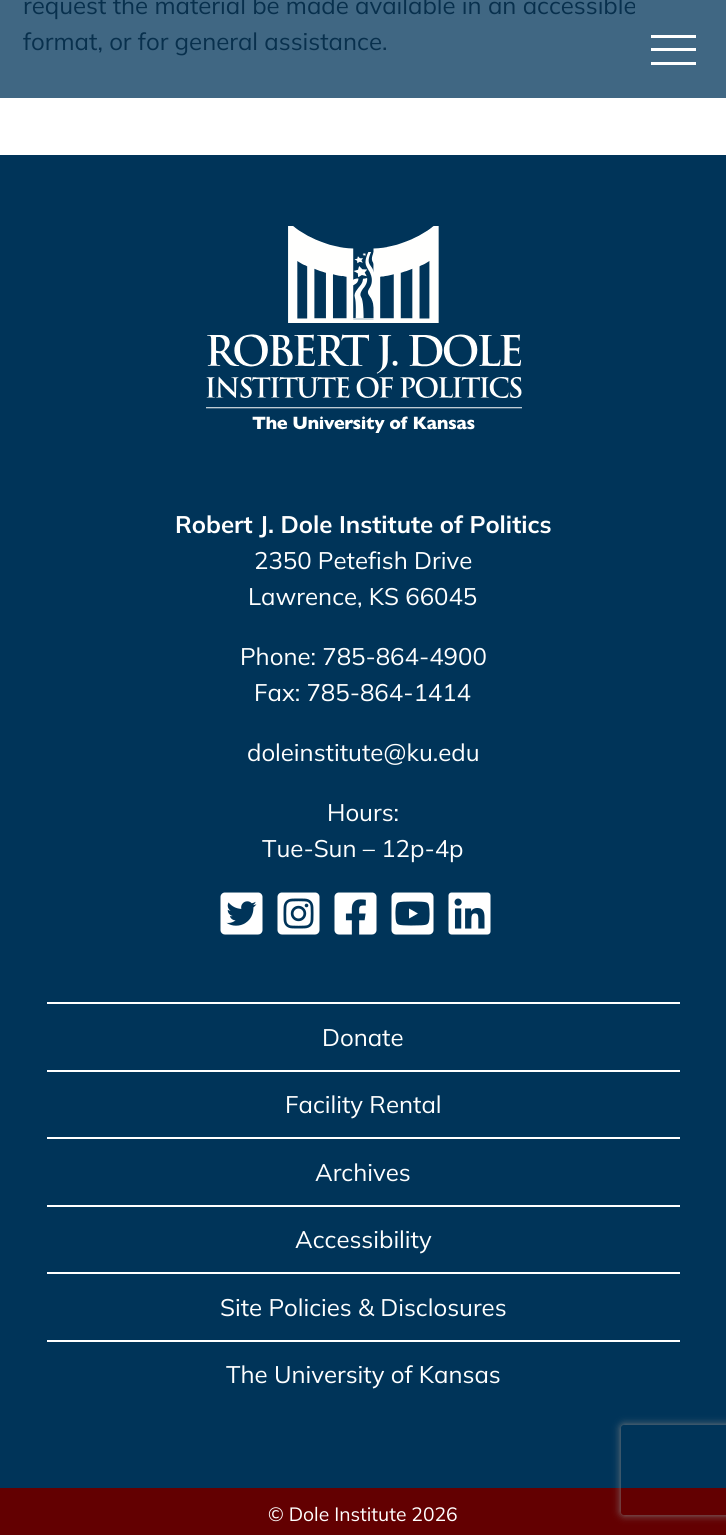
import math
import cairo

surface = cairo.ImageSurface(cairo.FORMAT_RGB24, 726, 1535)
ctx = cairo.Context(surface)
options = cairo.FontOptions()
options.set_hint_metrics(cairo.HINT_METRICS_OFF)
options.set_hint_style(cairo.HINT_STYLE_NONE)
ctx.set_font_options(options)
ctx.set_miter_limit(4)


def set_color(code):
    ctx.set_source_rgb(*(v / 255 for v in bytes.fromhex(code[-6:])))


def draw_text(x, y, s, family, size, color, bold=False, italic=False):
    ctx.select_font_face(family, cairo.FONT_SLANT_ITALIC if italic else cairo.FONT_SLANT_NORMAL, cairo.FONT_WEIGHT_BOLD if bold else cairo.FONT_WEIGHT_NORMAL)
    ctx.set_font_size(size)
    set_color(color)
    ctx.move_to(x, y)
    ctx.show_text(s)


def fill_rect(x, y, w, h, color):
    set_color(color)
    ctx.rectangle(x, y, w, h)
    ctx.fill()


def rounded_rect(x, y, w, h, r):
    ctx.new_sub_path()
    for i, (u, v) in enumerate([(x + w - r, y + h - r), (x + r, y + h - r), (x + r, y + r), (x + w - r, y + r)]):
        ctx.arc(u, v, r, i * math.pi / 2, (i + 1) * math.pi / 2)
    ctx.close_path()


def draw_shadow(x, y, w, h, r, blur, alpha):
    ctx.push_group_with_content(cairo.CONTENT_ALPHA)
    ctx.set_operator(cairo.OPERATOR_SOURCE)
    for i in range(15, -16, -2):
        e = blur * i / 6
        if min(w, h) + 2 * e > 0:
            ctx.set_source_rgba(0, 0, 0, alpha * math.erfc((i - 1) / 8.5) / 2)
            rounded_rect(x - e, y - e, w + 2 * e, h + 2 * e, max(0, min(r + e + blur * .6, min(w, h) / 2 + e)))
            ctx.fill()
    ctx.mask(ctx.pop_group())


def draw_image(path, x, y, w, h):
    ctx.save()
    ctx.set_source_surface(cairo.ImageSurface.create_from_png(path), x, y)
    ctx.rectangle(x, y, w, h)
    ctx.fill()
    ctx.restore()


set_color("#ffffff")
ctx.paint()
fill_rect(0, 0, 726, 98, "#406783")
draw_text(23, 14, "request the material be made available in an accessible", "Mulish", 24, "#08304d")
draw_text(23, 50, "format, or for general assistance.", "Mulish", 24, "#08304d")
fill_rect(0, 155, 726, 1333, "#003459")
draw_image("assets/img1.png", 206, 226, 316, 207)
draw_text(175, 533, "Robert J. Dole Institute of Politics", "Mulish", 24, "#ffffff", bold=True)
draw_text(254, 569, "2350 Petefish Drive", "Mulish", 24, "#ffffff")
draw_text(248, 605, "Lawrence, KS 66045", "Mulish", 24, "#ffffff")
draw_text(240, 665, "Phone: 785-864-4900", "Mulish", 24, "#ffffff")
draw_text(254, 701, "Fax: 785-864-1414", "Mulish", 24, "#ffffff")
draw_text(247, 761, "doleinstitute@ku.edu", "Mulish", 24, "#ffffff")
draw_text(327, 821, "Hours:", "Mulish", 24, "#ffffff")
draw_text(262, 857, "Tue-Sun – 12p-4p", "Mulish", 24, "#ffffff")
draw_image("assets/img2.png", 220, 892, 43, 43)
draw_image("assets/img3.png", 277, 892, 43, 43)
draw_image("assets/img4.png", 334, 892, 43, 43)
draw_image("assets/img5.png", 391, 892, 43, 43)
draw_image("assets/img6.png", 448, 892, 43, 43)
fill_rect(47, 1002, 633, 2, "#ffffff")
draw_text(322, 1046, "Donate", "Mulish", 24, "#ffffff")
fill_rect(47, 1070, 633, 2, "#ffffff")
draw_text(285, 1113, "Facility Rental", "Mulish", 24, "#ffffff")
fill_rect(47, 1137, 633, 2, "#ffffff")
draw_text(315, 1181, "Archives", "Mulish", 24, "#ffffff")
fill_rect(47, 1205, 633, 2, "#ffffff")
draw_text(295, 1248, "Accessibility", "Mulish", 24, "#ffffff")
fill_rect(47, 1272, 633, 2, "#ffffff")
draw_text(220, 1316, "Site Policies & Disclosures", "Mulish", 24, "#ffffff")
fill_rect(47, 1340, 633, 2, "#ffffff")
draw_text(226, 1383, "The University of Kansas", "Mulish", 24, "#ffffff")
fill_rect(0, 1488, 726, 47, "#630001")
draw_text(268, 1521, "© Dole Institute 2026", "Mulish", 19.25, "#ffffff")
fill_rect(651, 35, 45, 3, "#ffffff")
fill_rect(651, 48, 45, 3, "#ffffff")
fill_rect(651, 62, 45, 3, "#ffffff")
ctx.save()
ctx.set_fill_rule(cairo.FILL_RULE_EVEN_ODD)
ctx.new_path()
ctx.move_to(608, 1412)
ctx.line_to(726, 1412)
ctx.line_to(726, 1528)
ctx.line_to(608, 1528)
ctx.close_path()
ctx.move_to(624, 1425)
ctx.line_to(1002, 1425)
ctx.curve_to(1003.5, 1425, 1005, 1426.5, 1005, 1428)
ctx.line_to(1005, 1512)
ctx.curve_to(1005, 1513.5, 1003.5, 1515, 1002, 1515)
ctx.line_to(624, 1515)
ctx.curve_to(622.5, 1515, 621, 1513.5, 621, 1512)
ctx.line_to(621, 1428)
ctx.curve_to(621, 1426.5, 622.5, 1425, 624, 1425)
ctx.close_path()
ctx.clip()
set_color("#808080")
draw_shadow(621, 1425, 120, 90, 3, 4, 1)
ctx.restore()
surface.write_to_png("output.png")
